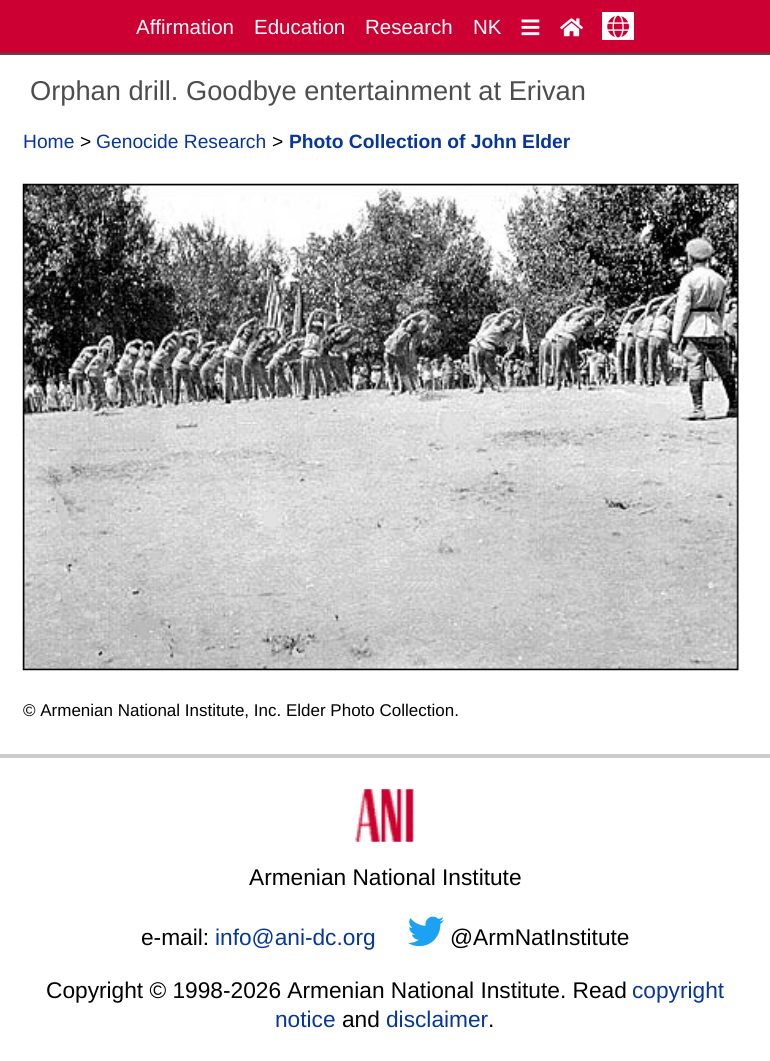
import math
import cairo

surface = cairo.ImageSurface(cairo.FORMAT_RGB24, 770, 1061)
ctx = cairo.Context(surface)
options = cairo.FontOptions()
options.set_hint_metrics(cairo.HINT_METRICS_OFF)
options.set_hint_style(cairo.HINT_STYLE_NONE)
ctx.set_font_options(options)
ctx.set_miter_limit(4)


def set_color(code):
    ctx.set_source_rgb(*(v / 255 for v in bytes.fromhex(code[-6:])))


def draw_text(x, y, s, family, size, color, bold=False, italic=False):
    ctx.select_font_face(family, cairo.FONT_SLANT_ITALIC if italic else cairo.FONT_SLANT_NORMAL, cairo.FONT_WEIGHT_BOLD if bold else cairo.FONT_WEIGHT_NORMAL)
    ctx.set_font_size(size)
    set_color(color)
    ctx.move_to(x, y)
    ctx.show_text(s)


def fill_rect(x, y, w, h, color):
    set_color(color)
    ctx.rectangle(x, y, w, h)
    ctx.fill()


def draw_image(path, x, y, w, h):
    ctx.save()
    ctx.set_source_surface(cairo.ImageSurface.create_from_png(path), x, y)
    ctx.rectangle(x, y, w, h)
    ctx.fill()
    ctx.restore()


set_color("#ffffff")
ctx.paint()
fill_rect(0, 0, 770, 53, "#cc0033")
fill_rect(0, 53, 770, 2, "#4d4d4d")
draw_text(136, 34, "Affirmation", "Liberation Sans", 20.5, "#ffffff")
draw_text(254, 34, "Education", "Liberation Sans", 20.5, "#ffffff")
draw_text(365, 34, "Research", "Liberation Sans", 20.5, "#ffffff")
draw_text(473, 34, "NK", "Liberation Sans", 20.5, "#ffffff")
draw_image("assets/img1.png", 521, 19, 19, 17)
draw_image("assets/img2.png", 560, 18, 23, 19)
fill_rect(602, 12, 32, 28, "#ffffff")
draw_image("assets/img3.png", 607, 15, 22, 23)
draw_text(30, 100, "Orphan drill. Goodbye entertainment at Erivan", "Liberation Sans", 27.25, "#4d4d4d")
draw_text(23, 148, "Home", "Liberation Sans", 19.25, "#06359c")
draw_text(80, 148, ">", "Liberation Sans", 19.25, "#000000")
draw_text(96, 148, "Genocide Research", "Liberation Sans", 19.25, "#06359c")
draw_text(272, 148, ">", "Liberation Sans", 19.25, "#000000")
draw_text(289, 148, "Photo Collection of John Elder", "Liberation Sans", 19.25, "#06359c", bold=True)
draw_image("assets/img4.png", 22, 183, 717, 488)
draw_text(23, 716, "© Armenian National Institute, Inc. Elder Photo Collection.", "Liberation Sans", 17, "#000000")
fill_rect(0, 754, 770, 4, "#cccccc")
draw_image("assets/img5.png", 355, 789, 59, 53)
draw_text(249, 885, "Armenian National Institute", "Liberation Sans", 22.7, "#000000")
draw_text(141, 945, "e-mail:", "Liberation Sans", 22.7, "#000000")
draw_text(215, 945, "info@ani-dc.org", "Liberation Sans", 22.7, "#06359c")
draw_image("assets/img6.png", 408, 916, 36, 31)
draw_text(450, 945, "@ArmNatInstitute", "Liberation Sans", 22.7, "#000000")
draw_text(46, 998, "Copyright © 1998-2026 Armenian National Institute. Read", "Liberation Sans", 22.7, "#000000")
draw_text(632, 998, "copyright", "Liberation Sans", 22.7, "#06359c")
draw_text(275, 1027, "notice", "Liberation Sans", 22.7, "#06359c")
draw_text(342, 1027, "and", "Liberation Sans", 22.7, "#000000")
draw_text(386, 1027, "disclaimer", "Liberation Sans", 22.7, "#06359c")
draw_text(488, 1027, ".", "Liberation Sans", 22.7, "#000000")
surface.write_to_png("output.png")
